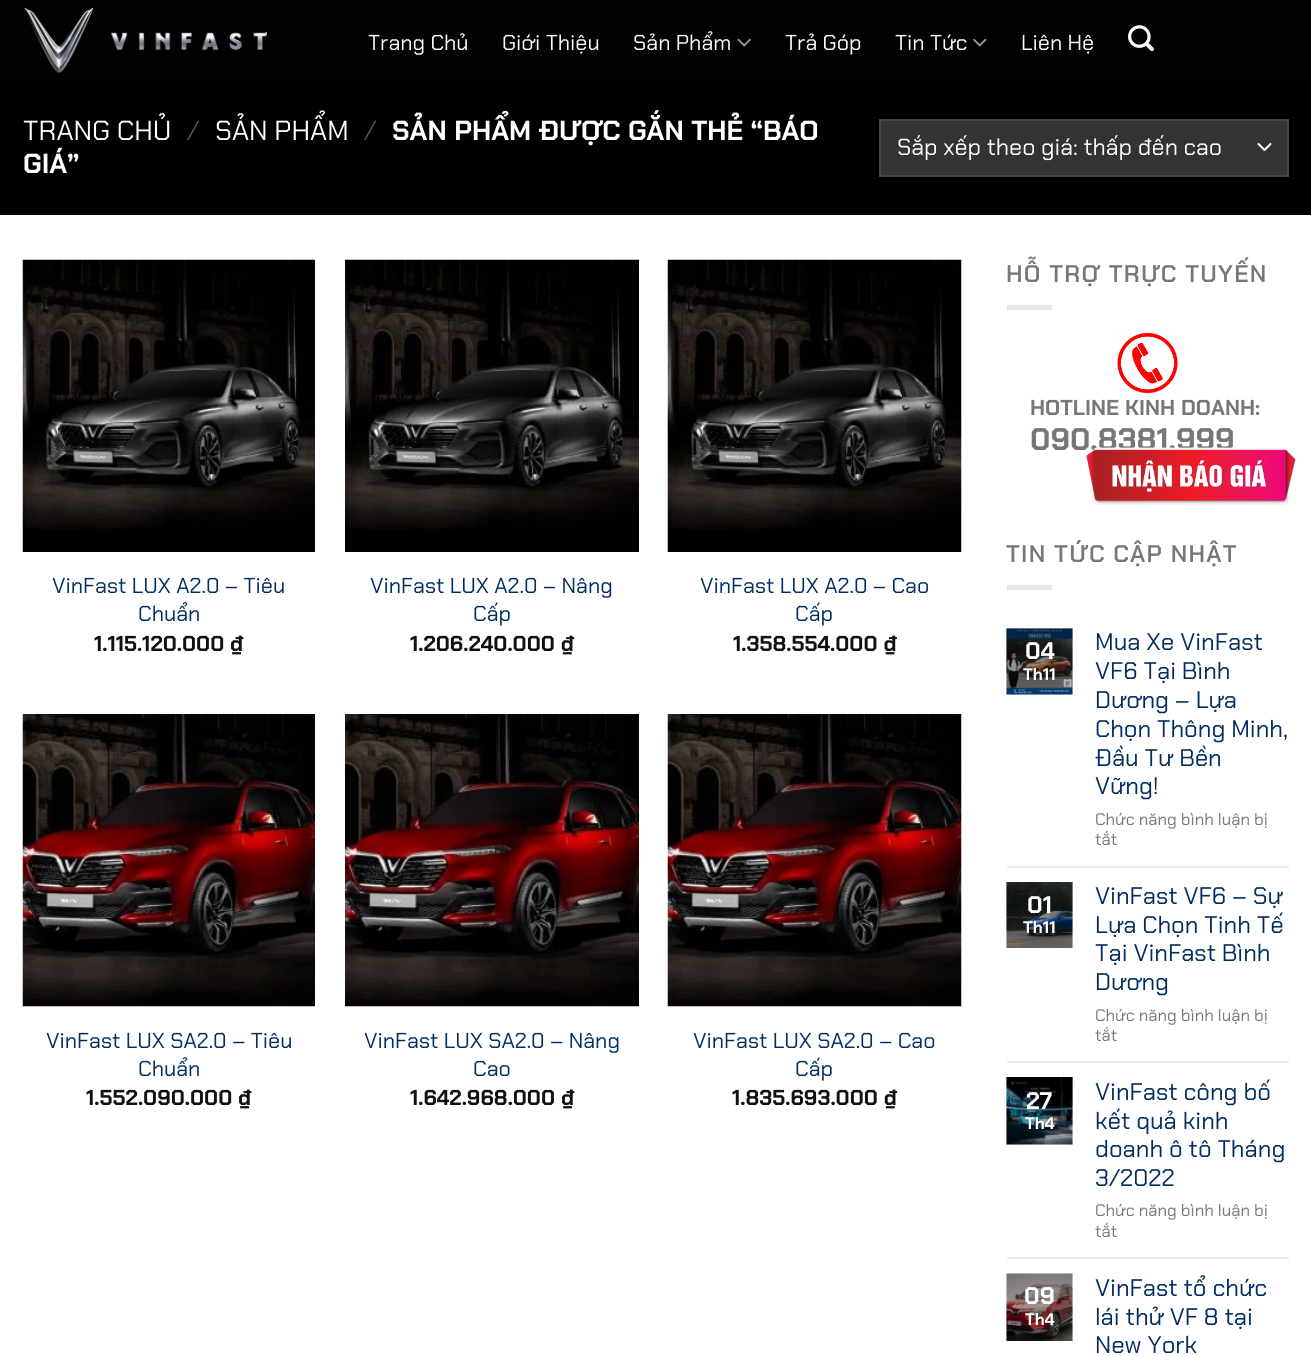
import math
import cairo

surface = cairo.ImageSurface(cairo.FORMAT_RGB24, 1311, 1356)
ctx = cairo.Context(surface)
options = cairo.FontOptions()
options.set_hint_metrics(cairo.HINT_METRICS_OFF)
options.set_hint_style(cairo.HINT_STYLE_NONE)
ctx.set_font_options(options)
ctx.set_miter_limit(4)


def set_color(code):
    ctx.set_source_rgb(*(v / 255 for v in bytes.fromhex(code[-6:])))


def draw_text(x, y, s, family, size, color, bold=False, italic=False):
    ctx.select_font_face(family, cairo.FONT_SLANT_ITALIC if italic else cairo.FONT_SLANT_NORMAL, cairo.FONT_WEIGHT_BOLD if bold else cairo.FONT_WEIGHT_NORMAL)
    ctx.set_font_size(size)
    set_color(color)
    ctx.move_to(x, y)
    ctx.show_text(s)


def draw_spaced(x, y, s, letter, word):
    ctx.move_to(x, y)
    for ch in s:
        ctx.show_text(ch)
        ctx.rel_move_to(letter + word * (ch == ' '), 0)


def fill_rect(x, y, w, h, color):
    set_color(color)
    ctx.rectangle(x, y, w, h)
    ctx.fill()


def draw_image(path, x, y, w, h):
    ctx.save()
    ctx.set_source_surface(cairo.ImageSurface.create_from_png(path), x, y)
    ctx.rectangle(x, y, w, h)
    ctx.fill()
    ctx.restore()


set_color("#ffffff")
ctx.paint()
fill_rect(0, 0, 1311, 81, "#020202")
draw_image("assets/img1.png", 24, 8, 243, 65)
draw_text(368, 50, "Trang Chủ", "Chakra Petch", 21.6, "#ffffff")
draw_text(502, 50, "Giới Thiệu", "Chakra Petch", 21.6, "#ffffff")
draw_text(633, 50, "Sản Phẩm", "Chakra Petch", 21.6, "#ffffff")
draw_image("assets/img2.png", 737, 38, 14, 9)
draw_text(785, 50, "Trả Góp", "Chakra Petch", 21.6, "#ffffff")
draw_text(895, 50, "Tin Tức", "Chakra Petch", 21.6, "#ffffff")
draw_image("assets/img3.png", 973, 38, 14, 9)
draw_text(1021, 50, "Liên Hệ", "Chakra Petch", 21.6, "#ffffff")
draw_image("assets/img4.png", 1128, 25, 26, 27)
fill_rect(0, 81, 1311, 134, "#000000")
draw_text(23, 140, "TRANG CHỦ", "Chakra Petch", 27.6, "#ffffff")
draw_text(187, 140, "/", "Chakra Petch Light", 27.6, "#595959")
draw_text(215, 140, "SẢN PHẨM", "Chakra Petch", 27.6, "#ffffff")
draw_text(364, 140, "/", "Chakra Petch Light", 27.6, "#595959")
draw_text(392, 140, "SẢN PHẨM ĐƯỢC GẮN THẺ “BÁO", "Chakra Petch", 27.6, "#ffffff", bold=True)
draw_text(23, 173, "GIÁ”", "Chakra Petch", 27.6, "#ffffff", bold=True)
fill_rect(881, 121, 406, 54, "#333333")
ctx.new_path()
ctx.move_to(1258.5, 144)
ctx.line_to(1264.5, 150)
ctx.line_to(1270.5, 144)
set_color("#ffffff")
ctx.set_line_cap(cairo.LINE_CAP_ROUND)
ctx.set_line_join(cairo.LINE_JOIN_ROUND)
ctx.stroke()
ctx.rectangle(880, 120, 408, 56)
set_color("#454545")
ctx.set_line_cap(cairo.LINE_CAP_BUTT)
ctx.set_line_join(cairo.LINE_JOIN_MITER)
ctx.stroke()
draw_text(897, 155, "Sắp xếp theo giá: thấp đến cao", "Chakra Petch", 23.25, "#ffffff")
draw_image("assets/img5.png", 22, 259, 293, 293)
draw_text(52, 593, "VinFast LUX A2.0 – Tiêu", "Chakra Petch", 21.6, "#002c5f")
draw_text(138, 621, "Chuẩn", "Chakra Petch", 21.6, "#002c5f")
draw_text(94, 651, "1.115.120.000 ₫", "Chakra Petch", 21.6, "#111111", bold=True)
draw_image("assets/img6.png", 345, 259, 294, 293)
draw_text(370, 593, "VinFast LUX A2.0 – Nâng", "Chakra Petch", 21.6, "#002c5f")
draw_text(473, 621, "Cấp", "Chakra Petch", 21.6, "#002c5f")
draw_text(410, 651, "1.206.240.000 ₫", "Chakra Petch", 21.6, "#111111", bold=True)
draw_image("assets/img7.png", 667, 259, 295, 293)
draw_text(700, 593, "VinFast LUX A2.0 – Cao", "Chakra Petch", 21.6, "#002c5f")
draw_text(795, 621, "Cấp", "Chakra Petch", 21.6, "#002c5f")
draw_text(733, 651, "1.358.554.000 ₫", "Chakra Petch", 21.6, "#111111", bold=True)
draw_image("assets/img8.png", 22, 714, 293, 293)
draw_text(46, 1048, "VinFast LUX SA2.0 – Tiêu", "Chakra Petch", 21.6, "#002c5f")
draw_text(138, 1076, "Chuẩn", "Chakra Petch", 21.6, "#002c5f")
draw_text(86, 1105, "1.552.090.000 ₫", "Chakra Petch", 21.6, "#111111", bold=True)
draw_image("assets/img9.png", 345, 714, 294, 293)
draw_text(364, 1048, "VinFast LUX SA2.0 – Nâng", "Chakra Petch", 21.6, "#002c5f")
draw_text(473, 1076, "Cao", "Chakra Petch", 21.6, "#002c5f")
draw_text(410, 1105, "1.642.968.000 ₫", "Chakra Petch", 21.6, "#111111", bold=True)
draw_image("assets/img10.png", 667, 714, 295, 293)
draw_text(693, 1048, "VinFast LUX SA2.0 – Cao", "Chakra Petch", 21.6, "#002c5f")
draw_text(795, 1076, "Cấp", "Chakra Petch", 21.6, "#002c5f")
draw_text(732, 1105, "1.835.693.000 ₫", "Chakra Petch", 21.6, "#111111", bold=True)
ctx.select_font_face("Chakra Petch SemiBold")
ctx.set_font_size(24)
set_color("#777777")
draw_spaced(1006, 282, "HỖ TRỢ TRỰC TUYẾN", 1.25, 0)
fill_rect(1007, 305, 45, 5, "#e6e6e6")
draw_image("assets/img11.png", 1117, 333, 61, 60)
draw_text(1030, 415, "HOTLINE KINH DOANH:", "Chakra Petch", 21.6, "#777777", bold=True)
draw_text(1030, 450, "090.8381.999", "Chakra Petch", 31.25, "#777777", bold=True)
ctx.select_font_face("Chakra Petch SemiBold")
ctx.set_font_size(24)
draw_spaced(1006, 562, "TIN TỨC CẬP NHẬT", 1.25, 0)
fill_rect(1007, 585, 45, 5, "#e6e6e6")
draw_image("assets/img12.png", 1006, 628, 67, 67)
draw_text(1025, 659, "04", "Chakra Petch", 24, "#ffffff", bold=True)
draw_text(1023, 680, "Th11", "Chakra Petch", 16.75, "#ffffff", bold=True)
draw_text(1095, 650, "Mua Xe VinFast", "Chakra Petch", 24, "#002c5f")
draw_text(1095, 679, "VF6 Tại Bình", "Chakra Petch", 24, "#002c5f")
draw_text(1095, 708, "Dương – Lựa", "Chakra Petch", 24, "#002c5f")
draw_text(1095, 737, "Chọn Thông Minh,", "Chakra Petch", 24, "#002c5f")
draw_text(1095, 766, "Đầu Tư Bền", "Chakra Petch", 24, "#002c5f")
draw_text(1095, 794, "Vững!", "Chakra Petch", 24, "#002c5f")
draw_text(1095, 825, "Chức năng bình luận bị", "Chakra Petch", 16.75, "#777777")
draw_text(1095, 845, "tắt", "Chakra Petch", 16.75, "#777777")
fill_rect(1007, 866, 282, 2, "#ececec")
draw_image("assets/img13.png", 1006, 882, 67, 66)
draw_text(1027, 913, "01", "Chakra Petch", 24, "#ffffff", bold=True)
draw_text(1023, 933, "Th11", "Chakra Petch", 16.75, "#ffffff", bold=True)
draw_text(1095, 904, "VinFast VF6 – Sự", "Chakra Petch", 24, "#002c5f")
draw_text(1095, 933, "Lựa Chọn Tinh Tế", "Chakra Petch", 24, "#002c5f")
draw_text(1095, 961, "Tại VinFast Bình", "Chakra Petch", 24, "#002c5f")
draw_text(1095, 990, "Dương", "Chakra Petch", 24, "#002c5f")
draw_text(1095, 1021, "Chức năng bình luận bị", "Chakra Petch", 16.75, "#777777")
draw_text(1095, 1041, "tắt", "Chakra Petch", 16.75, "#777777")
fill_rect(1007, 1061, 282, 2, "#ececec")
draw_image("assets/img14.png", 1006, 1077, 67, 68)
draw_text(1026, 1109, "27", "Chakra Petch", 24, "#ffffff", bold=True)
draw_text(1025, 1129, "Th4", "Chakra Petch", 16.75, "#ffffff", bold=True)
draw_text(1095, 1100, "VinFast công bố", "Chakra Petch", 24, "#002c5f")
draw_text(1095, 1129, "kết quả kinh", "Chakra Petch", 24, "#002c5f")
draw_text(1095, 1157, "doanh ô tô Tháng", "Chakra Petch", 24, "#002c5f")
draw_text(1095, 1186, "3/2022", "Chakra Petch", 24, "#002c5f")
draw_text(1095, 1216, "Chức năng bình luận bị", "Chakra Petch", 16.75, "#777777")
draw_text(1095, 1237, "tắt", "Chakra Petch", 16.75, "#777777")
fill_rect(1007, 1257, 282, 2, "#ececec")
draw_image("assets/img15.png", 1006, 1273, 67, 68)
draw_text(1024, 1304, "09", "Chakra Petch", 24, "#ffffff", bold=True)
draw_text(1025, 1325, "Th4", "Chakra Petch", 16.75, "#ffffff", bold=True)
draw_text(1095, 1296, "VinFast tổ chức", "Chakra Petch", 24, "#002c5f")
draw_text(1095, 1325, "lái thử VF 8 tại", "Chakra Petch", 24, "#002c5f")
draw_text(1095, 1353, "New York", "Chakra Petch", 24, "#002c5f")
draw_image("assets/img16.png", 1086, 447, 210, 58)
surface.write_to_png("output.png")
